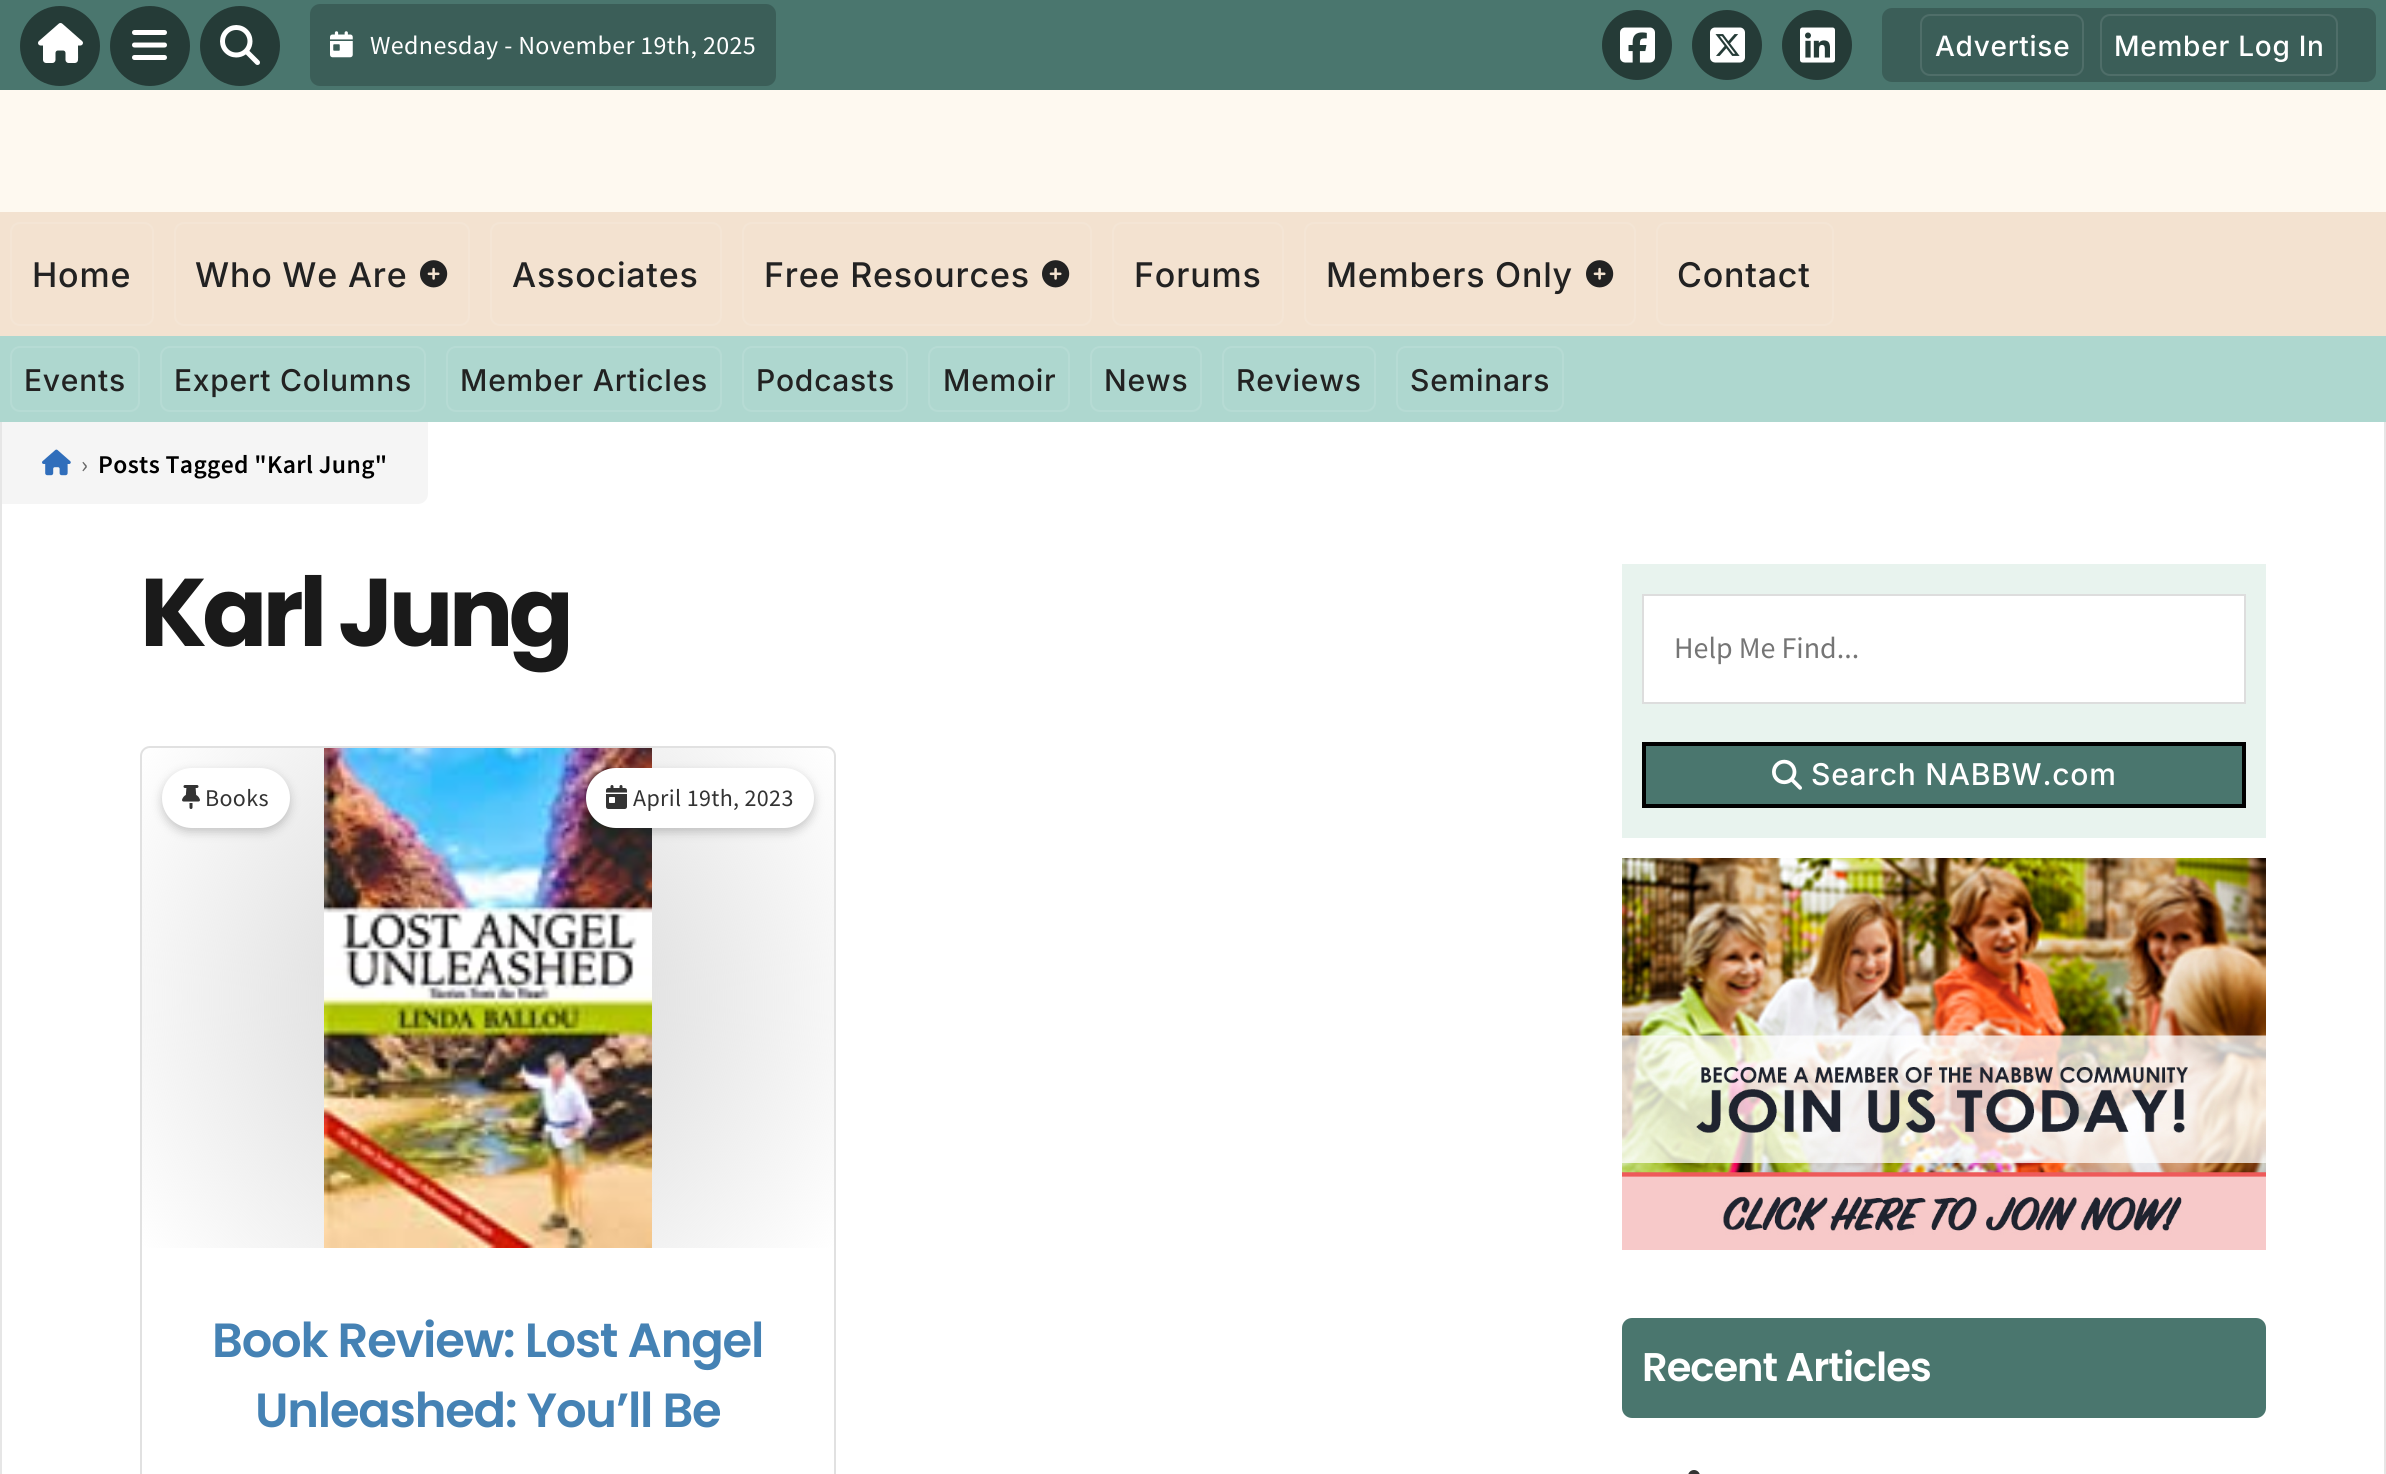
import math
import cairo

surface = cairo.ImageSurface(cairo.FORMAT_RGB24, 2386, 1474)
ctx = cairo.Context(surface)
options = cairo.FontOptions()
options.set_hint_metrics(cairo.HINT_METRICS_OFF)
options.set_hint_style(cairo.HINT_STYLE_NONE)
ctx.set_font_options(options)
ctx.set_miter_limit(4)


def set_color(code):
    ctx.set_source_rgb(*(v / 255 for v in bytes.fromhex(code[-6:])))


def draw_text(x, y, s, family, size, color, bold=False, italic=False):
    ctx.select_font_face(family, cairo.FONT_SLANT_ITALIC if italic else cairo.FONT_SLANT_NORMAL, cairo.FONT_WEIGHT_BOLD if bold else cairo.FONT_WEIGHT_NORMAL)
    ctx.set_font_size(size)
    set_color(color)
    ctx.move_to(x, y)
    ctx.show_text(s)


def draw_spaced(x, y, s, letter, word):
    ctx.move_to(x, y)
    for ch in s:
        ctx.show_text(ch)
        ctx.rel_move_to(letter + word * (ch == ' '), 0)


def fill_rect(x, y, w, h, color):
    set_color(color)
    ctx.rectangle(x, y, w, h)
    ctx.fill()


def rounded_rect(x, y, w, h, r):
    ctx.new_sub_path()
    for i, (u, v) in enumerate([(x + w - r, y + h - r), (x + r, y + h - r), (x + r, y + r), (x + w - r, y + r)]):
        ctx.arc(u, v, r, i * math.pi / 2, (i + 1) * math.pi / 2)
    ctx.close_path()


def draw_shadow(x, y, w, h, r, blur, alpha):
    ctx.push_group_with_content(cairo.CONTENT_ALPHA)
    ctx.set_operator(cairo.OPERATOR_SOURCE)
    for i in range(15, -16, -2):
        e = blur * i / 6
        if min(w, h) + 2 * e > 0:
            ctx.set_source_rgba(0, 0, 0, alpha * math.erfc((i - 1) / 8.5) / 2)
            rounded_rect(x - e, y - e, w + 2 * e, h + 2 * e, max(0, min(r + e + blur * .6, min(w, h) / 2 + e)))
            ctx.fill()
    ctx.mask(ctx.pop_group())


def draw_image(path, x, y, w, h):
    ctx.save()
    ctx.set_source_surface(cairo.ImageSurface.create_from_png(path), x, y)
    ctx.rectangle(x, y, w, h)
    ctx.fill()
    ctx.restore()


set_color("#fef9f0")
ctx.paint()
fill_rect(0, 0, 2386, 90, "#4a766e")
set_color("#253b37")
ctx.arc(60, 46, 40, 0, 2 * math.pi)
ctx.fill()
draw_image("assets/img1.png", 38, 23, 45, 40)
ctx.arc(150, 46, 40, 0, 2 * math.pi)
ctx.fill()
draw_image("assets/img2.png", 132, 30, 35, 30)
ctx.arc(240, 46, 40, 0, 2 * math.pi)
ctx.fill()
draw_image("assets/img3.png", 220, 25, 40, 40)
set_color("#3b5e58")
rounded_rect(310, 4, 466, 82, 10)
ctx.fill()
draw_image("assets/img4.png", 330, 31, 23, 27)
ctx.select_font_face("Source Sans Pro")
ctx.set_font_size(26)
set_color("#ffffff")
draw_spaced(370, 54, "Wednesday - November 19th, 2025", 0.35, 0)
set_color("#253b37")
ctx.new_path()
ctx.arc(1637, 45, 35, 0, 2 * math.pi)
ctx.fill()
draw_image("assets/img5.png", 1620, 27, 35, 36)
ctx.arc(1727, 45, 35, 0, 2 * math.pi)
ctx.fill()
draw_image("assets/img6.png", 1710, 27, 35, 36)
ctx.arc(1817, 45, 35, 0, 2 * math.pi)
ctx.fill()
draw_image("assets/img7.png", 1800, 27, 35, 36)
set_color("#3b5e58")
rounded_rect(1882, 8, 494, 74, 10)
ctx.fill()
rounded_rect(1921, 15, 162, 60, 9)
set_color("#4f6e69")
ctx.stroke()
ctx.select_font_face("Inter Medium")
ctx.set_font_size(28)
set_color("#ffffff")
draw_spaced(1935, 56, "Advertise", 0.75, 0)
rounded_rect(2101, 15, 236, 60, 9)
set_color("#4f6e69")
ctx.stroke()
set_color("#ffffff")
draw_spaced(2114, 56, "Member Log In", 0.75, 0)
fill_rect(0, 212, 2386, 124, "#f3e2d0")
rounded_rect(11, 223, 142, 102, 9)
set_color("#f4e5d5")
ctx.stroke()
ctx.set_font_size(34)
set_color("#222222")
draw_spaced(32, 287, "Home", 0.8, 0)
rounded_rect(175, 223, 294, 102, 9)
set_color("#f4e5d5")
ctx.stroke()
set_color("#222222")
draw_spaced(195, 287, "Who We Are", 0.8, 0)
draw_image("assets/img8.png", 420, 260, 28, 28)
rounded_rect(491, 223, 230, 102, 9)
set_color("#f4e5d5")
ctx.stroke()
set_color("#222222")
draw_spaced(512, 287, "Associates", 0.8, 0)
rounded_rect(743, 223, 348, 102, 9)
set_color("#f4e5d5")
ctx.stroke()
set_color("#222222")
draw_spaced(764, 287, "Free Resources", 0.8, 0)
draw_image("assets/img8.png", 1042, 260, 28, 28)
rounded_rect(1113, 223, 170, 102, 9)
set_color("#f4e5d5")
ctx.stroke()
set_color("#222222")
draw_spaced(1134, 287, "Forums", 0.8, 0)
rounded_rect(1305, 223, 330, 102, 9)
set_color("#f4e5d5")
ctx.stroke()
set_color("#222222")
draw_spaced(1326, 287, "Members Only", 0.8, 0)
draw_image("assets/img8.png", 1586, 260, 28, 28)
rounded_rect(1657, 223, 176, 102, 9)
set_color("#f4e5d5")
ctx.stroke()
set_color("#222222")
draw_spaced(1677, 287, "Contact", 0.8, 0)
fill_rect(0, 336, 2386, 86, "#aed7cf")
rounded_rect(11, 347, 128, 64, 9)
set_color("#b6dbd4")
ctx.stroke()
ctx.set_font_size(30)
set_color("#222222")
draw_spaced(24, 391, "Events", 0.75, 0)
rounded_rect(161, 347, 264, 64, 9)
set_color("#b6dbd4")
ctx.stroke()
set_color("#222222")
draw_spaced(174, 391, "Expert Columns", 0.75, 0)
rounded_rect(447, 347, 274, 64, 9)
set_color("#b6dbd4")
ctx.stroke()
set_color("#222222")
draw_spaced(460, 391, "Member Articles", 0.75, 0)
rounded_rect(743, 347, 164, 64, 9)
set_color("#b6dbd4")
ctx.stroke()
set_color("#222222")
draw_spaced(756, 391, "Podcasts", 0.75, 0)
rounded_rect(929, 347, 140, 64, 9)
set_color("#b6dbd4")
ctx.stroke()
set_color("#222222")
draw_spaced(943, 391, "Memoir", 0.75, 0)
rounded_rect(1091, 347, 110, 64, 9)
set_color("#b6dbd4")
ctx.stroke()
set_color("#222222")
draw_spaced(1104, 391, "News", 0.75, 0)
rounded_rect(1223, 347, 152, 64, 9)
set_color("#b6dbd4")
ctx.stroke()
set_color("#222222")
draw_spaced(1236, 391, "Reviews", 0.75, 0)
rounded_rect(1397, 347, 166, 64, 9)
set_color("#b6dbd4")
ctx.stroke()
set_color("#222222")
draw_spaced(1410, 391, "Seminars", 0.75, 0)
fill_rect(2, 422, 2382, 1052, "#ffffff")
fill_rect(2384, 422, 2, 1052, "#e6e6e6")
fill_rect(0, 422, 2, 1052, "#e6e6e6")
set_color("#f5f5f5")
ctx.new_path()
ctx.move_to(2, 422)
ctx.line_to(428, 422)
ctx.line_to(428, 494)
ctx.curve_to(428, 499.5, 423.5, 504, 418, 504)
ctx.line_to(2, 504)
ctx.close_path()
ctx.fill()
draw_image("assets/img9.png", 42, 449, 29, 27)
ctx.select_font_face("Source Sans Pro")
ctx.set_font_size(25.6)
set_color("#666666")
draw_spaced(81, 473, "›", 0.35, 0)
ctx.select_font_face("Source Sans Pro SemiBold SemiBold")
set_color("#000000")
draw_spaced(98, 473, "Posts Tagged \"Karl Jung\"", 0.35, 0)
ctx.select_font_face("Poppins", cairo.FONT_SLANT_NORMAL, cairo.FONT_WEIGHT_BOLD)
ctx.set_font_size(96)
set_color("#1a1a1a")
draw_spaced(140, 646, "Karl Jung", -4.75, 0)
rounded_rect(141, 747, 694, 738, 9)
set_color("#e1e1e1")
ctx.stroke()
gradient = cairo.RadialGradient(488, 998, 0, 488, 998, 427)
gradient.add_color_stop_rgba(0, 0.827, 0.827, 0.827, 1)
gradient.add_color_stop_rgba(1, 0.827, 0.827, 0.827, 0)
ctx.set_source(gradient)
ctx.rectangle(142, 748, 692, 500)
ctx.fill()
draw_image("assets/img10.png", 324, 748, 328, 500)
set_color("#000000")
draw_shadow(162, 772, 128, 60, 30, 5, 0.2)
set_color("#ffffff")
rounded_rect(162, 768, 128, 60, 30)
ctx.fill()
draw_image("assets/img11.png", 182, 785, 18, 24)
ctx.select_font_face("Source Sans Pro")
ctx.set_font_size(24)
set_color("#333333")
draw_spaced(205, 806, "Books", 0.35, 0)
set_color("#000000")
draw_shadow(586, 772, 228, 60, 30, 5, 0.2)
set_color("#ffffff")
rounded_rect(586, 768, 228, 60, 30)
ctx.fill()
draw_image("assets/img12.png", 606, 785, 21, 24)
set_color("#333333")
draw_spaced(633, 806, "April 19th, 2023", 0.35, 0)
ctx.select_font_face("Poppins SemiBold")
ctx.set_font_size(48)
set_color("#4582b4")
draw_spaced(212, 1357, "Book Review: Lost Angel", -1.2, 0)
draw_spaced(255, 1427, "Unleashed: You’ll Be", -1.2, 0)
fill_rect(1622, 564, 644, 274, "#e8f3ee")
set_color("#ffffff")
ctx.rectangle(1643, 595, 602, 108)
ctx.fill_preserve()
set_color("#dddddd")
ctx.stroke()
draw_text(1674, 658, "Help Me Find...", "Source Sans Pro", 30, "#757575")
set_color("#4a766e")
ctx.rectangle(1644, 744, 600, 62)
ctx.fill_preserve()
set_color("#000000")
ctx.set_line_width(4)
ctx.stroke()
draw_image("assets/img13.png", 1772, 759, 30, 31)
ctx.select_font_face("Inter Medium")
set_color("#ffffff")
draw_spaced(1811, 785, "Search NABBW.com", 0.75, 0)
draw_image("assets/img14.png", 1622, 858, 644, 392)
set_color("#4a766e")
rounded_rect(1622, 1318, 644, 100, 10)
ctx.fill()
ctx.select_font_face("Poppins SemiBold")
ctx.set_font_size(40)
set_color("#ffffff")
draw_spaced(1642, 1381, "Recent Articles", -1, 0)
set_color("#333333")
rounded_rect(1688, 1470, 12, 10, 6)
ctx.fill()
surface.write_to_png("output.png")
